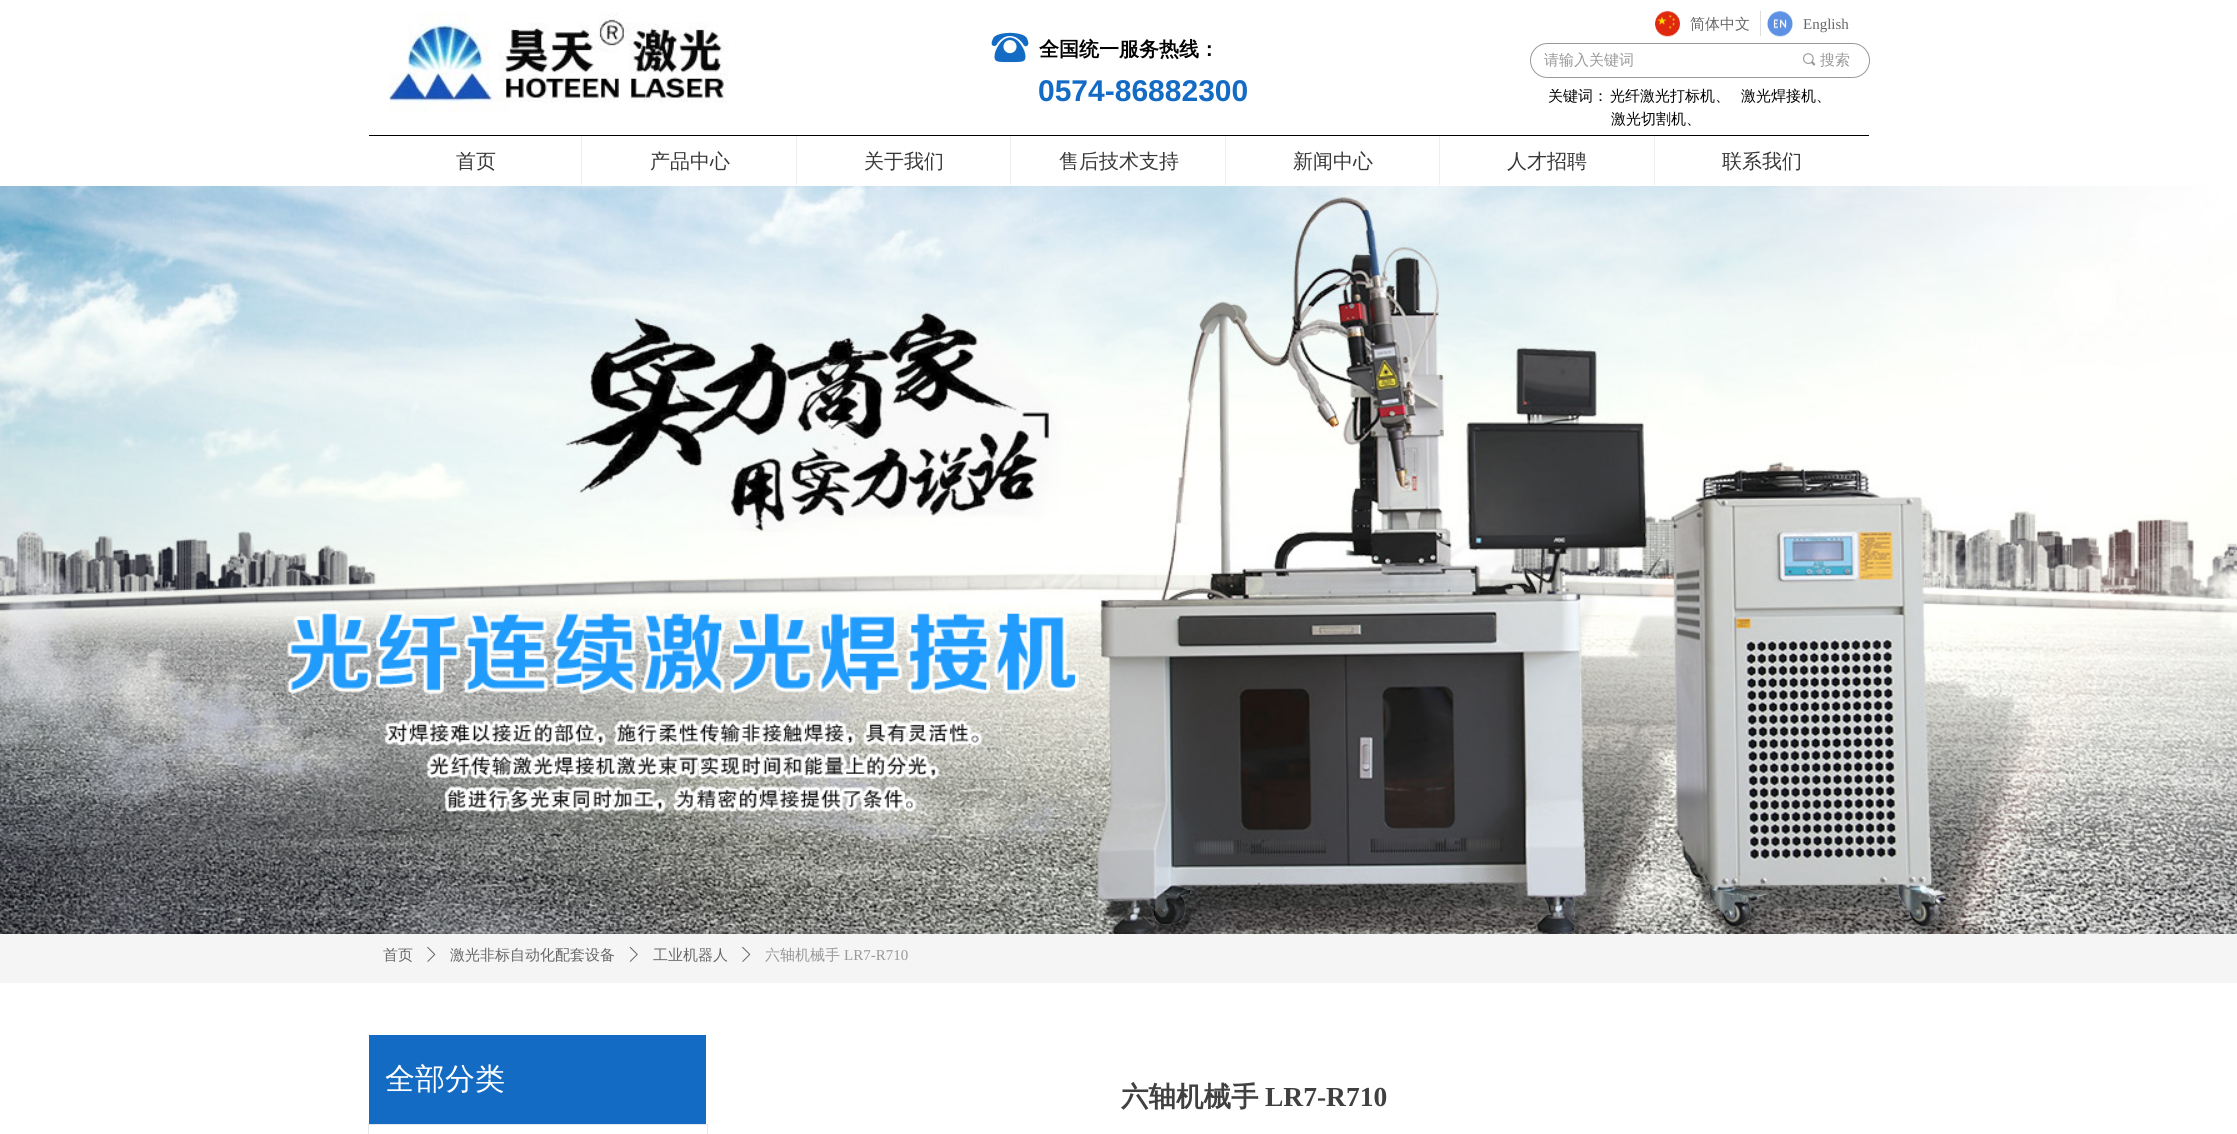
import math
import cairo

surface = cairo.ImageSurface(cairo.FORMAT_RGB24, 2237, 1134)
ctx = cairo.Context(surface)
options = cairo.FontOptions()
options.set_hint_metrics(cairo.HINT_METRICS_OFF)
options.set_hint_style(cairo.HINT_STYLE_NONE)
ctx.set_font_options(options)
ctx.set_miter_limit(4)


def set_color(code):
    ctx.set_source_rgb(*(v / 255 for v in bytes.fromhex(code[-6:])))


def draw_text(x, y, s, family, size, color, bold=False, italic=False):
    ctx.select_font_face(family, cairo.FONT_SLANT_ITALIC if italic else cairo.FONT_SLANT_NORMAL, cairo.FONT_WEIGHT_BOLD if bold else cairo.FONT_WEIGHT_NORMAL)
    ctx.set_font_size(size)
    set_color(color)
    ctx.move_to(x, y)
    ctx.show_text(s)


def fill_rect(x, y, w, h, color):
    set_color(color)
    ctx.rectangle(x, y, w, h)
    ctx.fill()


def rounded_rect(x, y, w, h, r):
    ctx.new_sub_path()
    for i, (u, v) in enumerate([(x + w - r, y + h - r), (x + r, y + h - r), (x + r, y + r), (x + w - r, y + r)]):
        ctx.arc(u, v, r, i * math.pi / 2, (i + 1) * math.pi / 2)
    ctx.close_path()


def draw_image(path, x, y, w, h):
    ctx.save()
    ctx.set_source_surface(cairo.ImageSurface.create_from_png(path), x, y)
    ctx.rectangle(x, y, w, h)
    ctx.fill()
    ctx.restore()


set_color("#ffffff")
ctx.paint()
draw_image("assets/img1.png", 388, 12, 341, 101)
draw_image("assets/img2.png", 1655, 11, 25, 26)
draw_text(1690, 29, "简体中文", "WenQuanYi Zen Hei Medium", 15, "#666666")
fill_rect(1760, 11, 1, 25, "#dddddd")
draw_image("assets/img3.png", 1767, 11, 26, 26)
draw_text(1803, 29, "English", "Liberation Serif", 15, "#666666")
draw_image("assets/img4.png", 991, 32, 38, 31)
draw_text(1039, 56, "全国统一服务热线：", "WenQuanYi Zen Hei", 20, "#000000", bold=True)
rounded_rect(1530.5, 43.5, 339, 34, 17)
set_color("#999999")
ctx.set_line_width(1)
ctx.stroke()
draw_text(1544, 65, "请输入关键词", "WenQuanYi Zen Hei Medium", 15, "#999999")
draw_image("assets/img5.png", 1803, 53, 13, 13)
draw_text(1820, 65, "搜索", "WenQuanYi Zen Hei Medium", 15, "#999999")
draw_text(1038, 101, "0574-86882300", "Liberation Sans", 30, "#136bc4", bold=True)
ctx.save()
ctx.rectangle(1548, 89, 65, 24)
ctx.clip()
draw_text(1548, 101, "关键词：", "WenQuanYi Zen Hei Medium", 15, "#000000")
ctx.restore()
draw_text(1610, 101, "光纤激光打标机、", "WenQuanYi Zen Hei Medium", 15, "#000000")
draw_text(1741, 101, "激光焊接机、", "WenQuanYi Zen Hei Medium", 15, "#000000")
draw_text(1611, 124, "激光切割机、", "WenQuanYi Zen Hei Medium", 15, "#000000")
fill_rect(369, 135, 1500, 1, "#000000")
draw_text(456, 168, "首页", "WenQuanYi Zen Hei Medium", 20, "#383838")
fill_rect(581, 136, 1, 49, "#eeeeee")
draw_text(650, 168, "产品中心", "WenQuanYi Zen Hei Medium", 20, "#383838")
fill_rect(796, 136, 1, 49, "#eeeeee")
draw_text(864, 168, "关于我们", "WenQuanYi Zen Hei Medium", 20, "#383838")
fill_rect(1010, 136, 1, 49, "#eeeeee")
draw_text(1059, 168, "售后技术支持", "WenQuanYi Zen Hei Medium", 20, "#383838")
fill_rect(1225, 136, 1, 49, "#eeeeee")
draw_text(1293, 168, "新闻中心", "WenQuanYi Zen Hei Medium", 20, "#383838")
fill_rect(1439, 136, 1, 49, "#eeeeee")
draw_text(1507, 168, "人才招聘", "WenQuanYi Zen Hei Medium", 20, "#383838")
fill_rect(1654, 136, 1, 49, "#eeeeee")
draw_text(1722, 168, "联系我们", "WenQuanYi Zen Hei Medium", 20, "#383838")
draw_image("assets/img6.png", 0, 186, 2237, 748)
fill_rect(0, 934, 2237, 49, "#f5f5f5")
draw_text(383, 960, "首页", "WenQuanYi Zen Hei Medium", 15, "#666666")
draw_image("assets/img7.png", 427, 946, 9, 16)
draw_text(450, 960, "激光非标自动化配套设备", "WenQuanYi Zen Hei Medium", 15, "#666666")
draw_image("assets/img8.png", 629, 946, 9, 16)
draw_text(653, 960, "工业机器人", "WenQuanYi Zen Hei Medium", 15, "#666666")
draw_image("assets/img7.png", 742, 946, 9, 16)
draw_text(765, 960, "六轴机械手", "WenQuanYi Zen Hei Medium", 15, "#999999")
draw_text(844, 960, "LR7-R710", "Liberation Serif", 15, "#999999")
fill_rect(369, 1035, 337, 89, "#136bc4")
draw_text(385, 1089, "全部分类", "WenQuanYi Zen Hei Medium", 30, "#ffffff")
ctx.rectangle(368.5, 1124.5, 339, 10)
set_color("#e7e7e7")
ctx.stroke()
draw_text(1121, 1106, "六轴机械手", "WenQuanYi Zen Hei", 27.5, "#404040", bold=True)
draw_text(1265, 1106, "LR7-R710", "Liberation Serif", 27.5, "#404040", bold=True)
surface.write_to_png("output.png")
